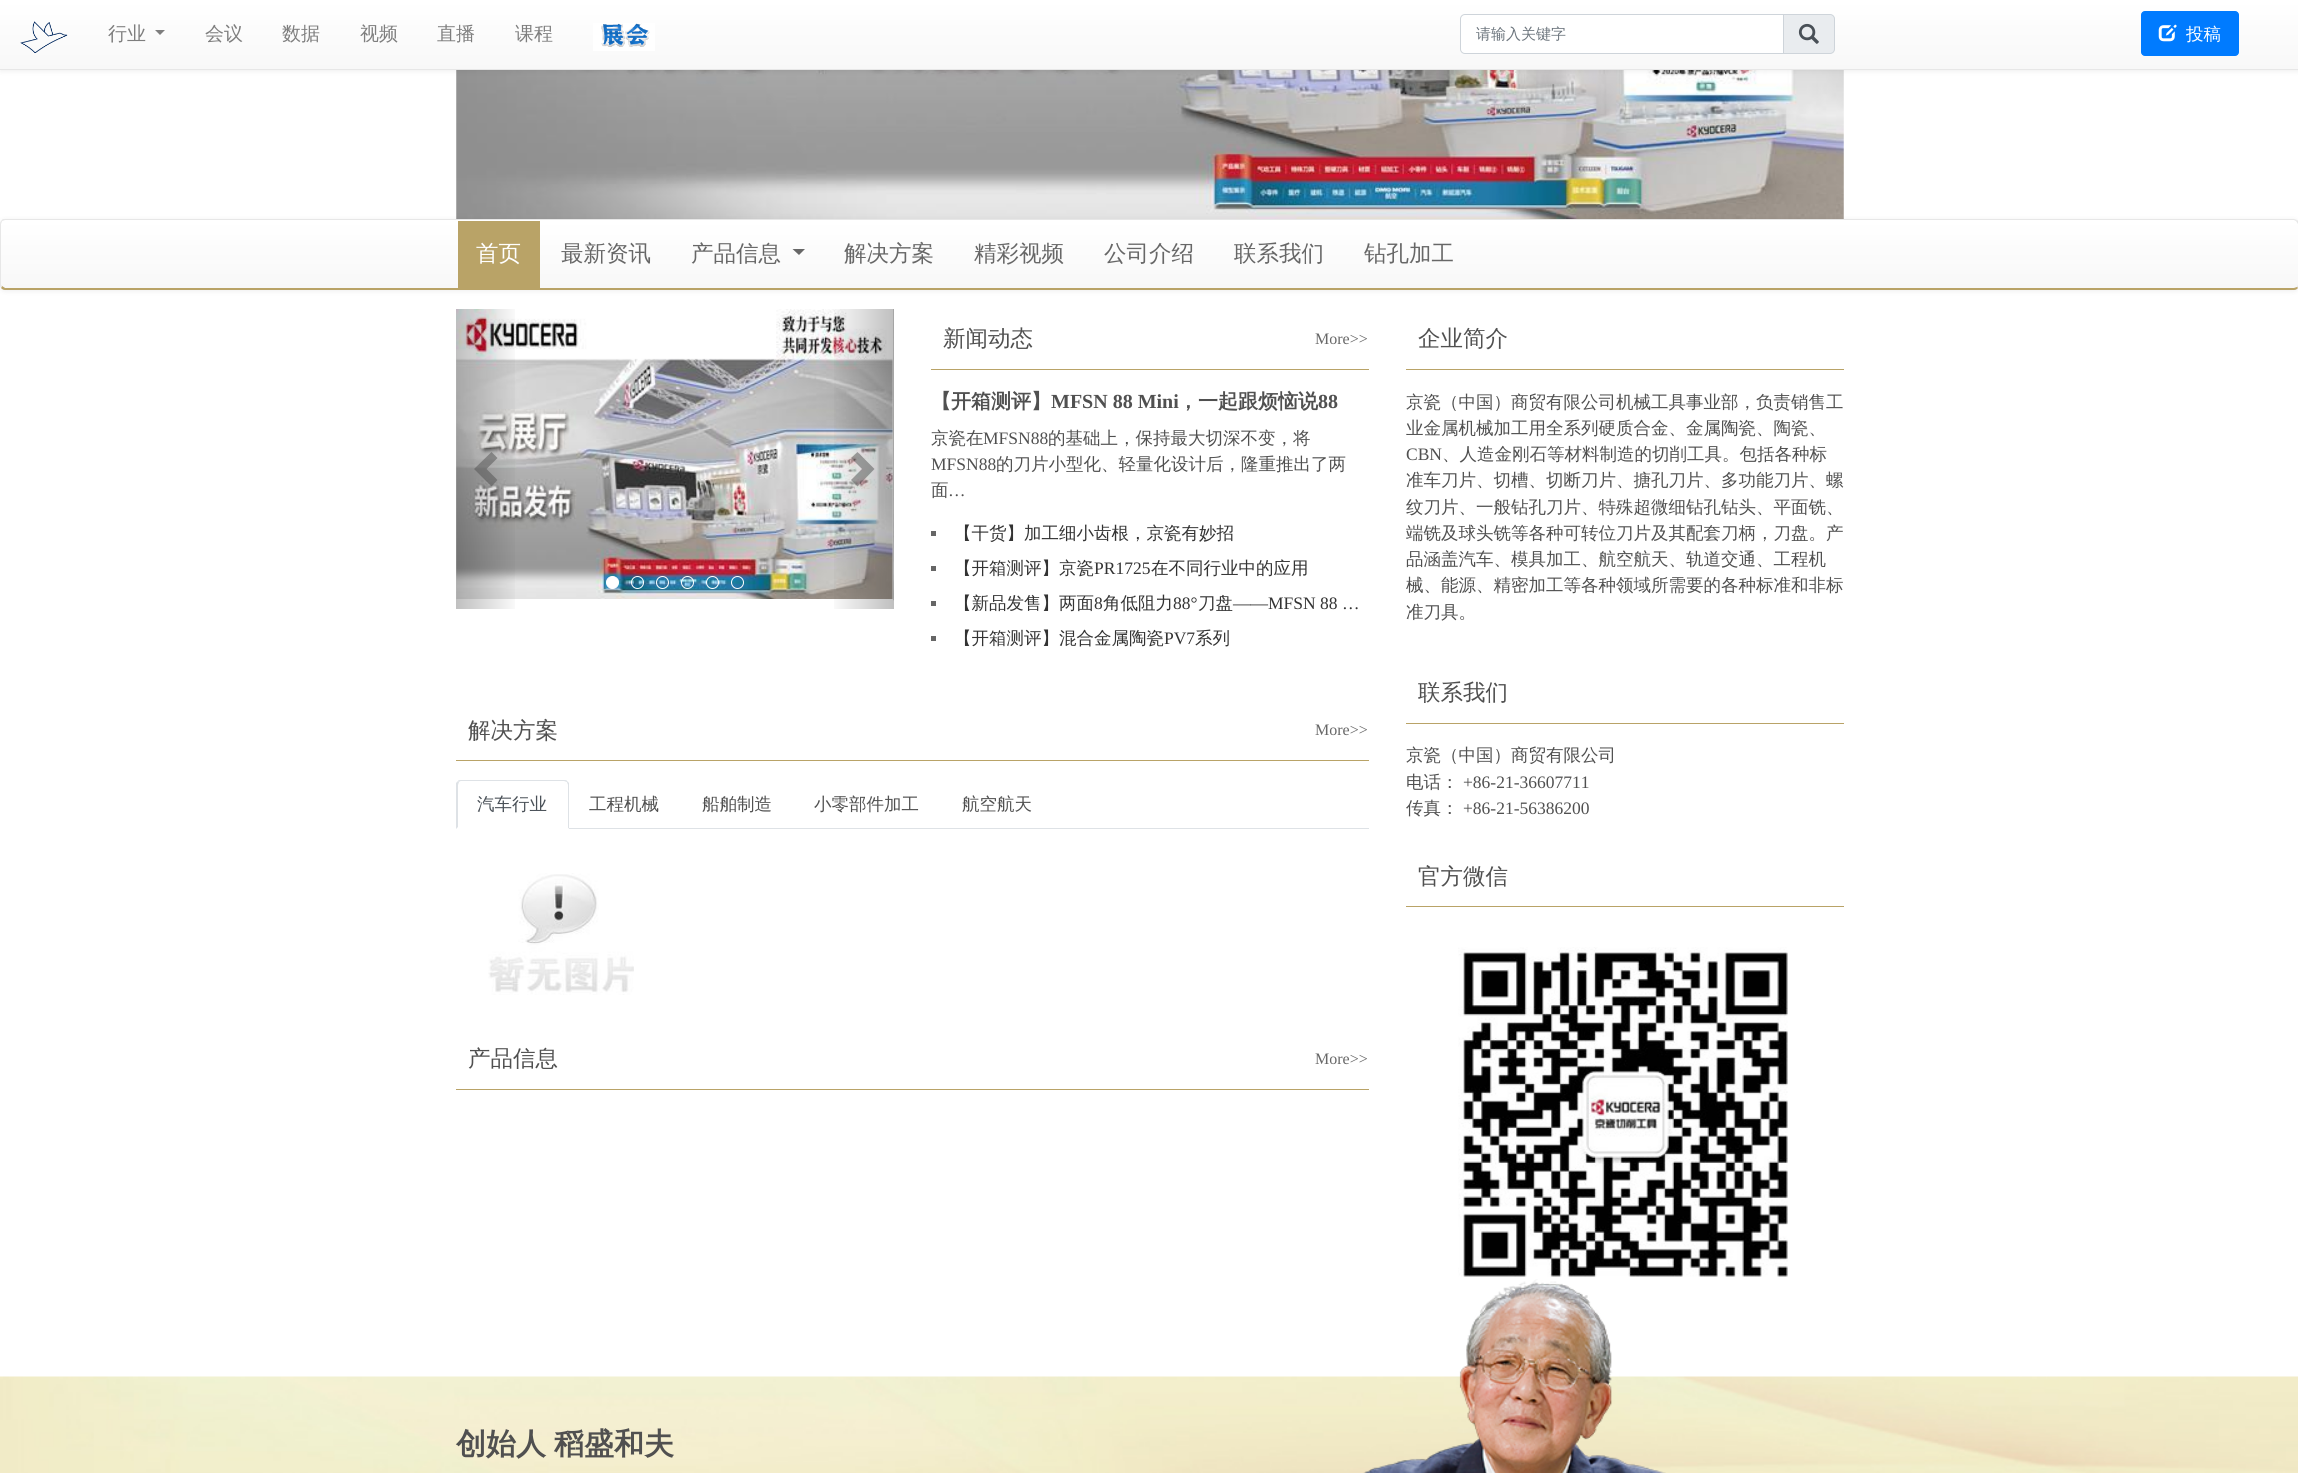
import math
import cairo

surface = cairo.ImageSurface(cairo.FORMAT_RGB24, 2298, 1473)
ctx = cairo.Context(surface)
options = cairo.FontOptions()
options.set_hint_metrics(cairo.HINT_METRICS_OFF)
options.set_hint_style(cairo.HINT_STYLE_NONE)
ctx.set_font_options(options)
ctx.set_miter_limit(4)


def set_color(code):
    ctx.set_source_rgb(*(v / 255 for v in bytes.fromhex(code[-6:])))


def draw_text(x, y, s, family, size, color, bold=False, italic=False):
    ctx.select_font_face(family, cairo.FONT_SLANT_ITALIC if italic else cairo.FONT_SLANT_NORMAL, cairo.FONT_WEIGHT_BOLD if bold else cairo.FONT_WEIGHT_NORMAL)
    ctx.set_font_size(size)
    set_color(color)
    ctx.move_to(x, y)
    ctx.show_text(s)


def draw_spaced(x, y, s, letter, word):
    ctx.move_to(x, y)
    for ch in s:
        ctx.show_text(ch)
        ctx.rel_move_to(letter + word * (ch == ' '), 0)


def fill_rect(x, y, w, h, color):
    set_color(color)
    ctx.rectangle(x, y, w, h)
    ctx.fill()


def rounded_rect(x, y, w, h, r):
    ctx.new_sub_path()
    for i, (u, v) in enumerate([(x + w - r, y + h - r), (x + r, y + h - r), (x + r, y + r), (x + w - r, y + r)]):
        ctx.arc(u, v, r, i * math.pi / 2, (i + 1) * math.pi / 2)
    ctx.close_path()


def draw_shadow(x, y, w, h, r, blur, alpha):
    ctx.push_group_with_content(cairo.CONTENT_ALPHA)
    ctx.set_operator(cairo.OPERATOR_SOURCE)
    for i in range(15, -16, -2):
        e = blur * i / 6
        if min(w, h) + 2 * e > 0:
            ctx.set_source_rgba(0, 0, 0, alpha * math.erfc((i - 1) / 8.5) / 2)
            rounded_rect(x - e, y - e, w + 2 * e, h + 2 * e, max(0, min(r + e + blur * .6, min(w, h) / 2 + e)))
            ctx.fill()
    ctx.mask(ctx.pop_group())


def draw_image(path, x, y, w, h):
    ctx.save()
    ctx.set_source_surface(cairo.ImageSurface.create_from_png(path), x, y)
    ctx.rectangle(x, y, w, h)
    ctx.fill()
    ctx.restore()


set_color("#ffffff")
ctx.paint()
draw_image("assets/img5.png", 456, 70, 1388, 149)
set_color("#000000")
draw_shadow(0, 1, 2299, 70, 0, 3, 0.07)
gradient = cairo.LinearGradient(1149, 0, 1149, 69)
gradient.add_color_stop_rgba(0, 1, 1, 1, 1)
gradient.add_color_stop_rgba(1, 0.973, 0.973, 0.973, 1)
ctx.set_source(gradient)
ctx.rectangle(0, 0, 2298, 69)
ctx.fill()
fill_rect(0, 69, 2298, 1, "#e7e7e7")
draw_image("assets/img1.png", 20, 21, 48, 32)
draw_text(108, 40, "行业", "WenQuanYi Zen Hei Medium", 19, "#7e7e7e")
ctx.new_path()
ctx.move_to(155, 30)
ctx.line_to(165, 30)
ctx.line_to(160, 35)
ctx.close_path()
ctx.fill()
draw_text(205, 40, "会议", "WenQuanYi Zen Hei Medium", 19, "#7e7e7e")
draw_text(282, 40, "数据", "WenQuanYi Zen Hei Medium", 19, "#7e7e7e")
draw_text(360, 40, "视频", "WenQuanYi Zen Hei Medium", 19, "#7e7e7e")
draw_text(437, 40, "直播", "WenQuanYi Zen Hei Medium", 19, "#7e7e7e")
draw_text(515, 40, "课程", "WenQuanYi Zen Hei Medium", 19, "#7e7e7e")
draw_image("assets/img2.png", 593, 23, 62, 28)
set_color("#e9ecef")
ctx.new_path()
ctx.move_to(1783.5, 14.5)
ctx.line_to(1830, 14.5)
ctx.curve_to(1832.5, 14.5, 1834.5, 16.5, 1834.5, 19)
ctx.line_to(1834.5, 49)
ctx.curve_to(1834.5, 51.5, 1832.5, 53.5, 1830, 53.5)
ctx.line_to(1783.5, 53.5)
ctx.close_path()
ctx.fill_preserve()
set_color("#ced4da")
ctx.set_line_width(1)
ctx.stroke()
set_color("#ffffff")
ctx.new_path()
ctx.move_to(1465, 14.5)
ctx.line_to(1783.5, 14.5)
ctx.line_to(1783.5, 53.5)
ctx.line_to(1465, 53.5)
ctx.curve_to(1462.5, 53.5, 1460.5, 51.5, 1460.5, 49)
ctx.line_to(1460.5, 19)
ctx.curve_to(1460.5, 16.5, 1462.5, 14.5, 1465, 14.5)
ctx.close_path()
ctx.fill_preserve()
set_color("#ced4da")
ctx.stroke()
draw_text(1476, 39, "请输入关键字", "WenQuanYi Zen Hei Medium", 15, "#6c757d")
draw_image("assets/img3.png", 1798, 23, 21, 21)
set_color("#007bff")
rounded_rect(2141.5, 11.5, 97, 44, 3.5)
ctx.fill_preserve()
ctx.stroke()
draw_image("assets/img4.png", 2158, 24, 19, 18)
draw_text(2186, 40, "投稿", "WenQuanYi Zen Hei Medium", 17.5, "#ffffff")
set_color("#000000")
draw_shadow(0, 220, 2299, 71, 5, 3, 0.07)
gradient = cairo.LinearGradient(1149, 220, 1149, 288)
gradient.add_color_stop_rgba(0, 1, 1, 1, 1)
gradient.add_color_stop_rgba(1, 0.973, 0.973, 0.973, 1)
ctx.set_source(gradient)
ctx.new_path()
ctx.move_to(5, 220)
ctx.line_to(2294, 220)
ctx.curve_to(2296, 220, 2298, 222, 2298, 224)
ctx.line_to(2298, 285)
ctx.curve_to(2298, 286, 2296, 288, 2294, 288)
ctx.line_to(5, 288)
ctx.curve_to(3, 288, 1, 286, 1, 285)
ctx.line_to(1, 224)
ctx.curve_to(1, 222, 3, 220, 5, 220)
ctx.close_path()
ctx.fill()
set_color("#e7e7e7")
ctx.new_path()
ctx.move_to(5, 219)
ctx.curve_to(4, 219, 2, 219, 2, 220)
ctx.line_to(2, 221)
ctx.line_to(5, 220)
ctx.line_to(2294, 220)
ctx.line_to(2296, 221)
ctx.line_to(2297, 220)
ctx.line_to(2294, 219)
ctx.close_path()
ctx.fill()
ctx.new_path()
ctx.move_to(2297, 220)
ctx.line_to(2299, 222)
ctx.line_to(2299, 287)
ctx.line_to(2298, 288)
ctx.line_to(2297, 287)
ctx.line_to(2298, 285)
ctx.line_to(2298, 224)
ctx.line_to(2296, 221)
ctx.close_path()
ctx.fill()
set_color("#b9a367")
ctx.new_path()
ctx.move_to(5, 290)
ctx.line_to(2294, 290)
ctx.curve_to(2296, 290, 2297, 289, 2298, 288)
ctx.line_to(2297, 287)
ctx.line_to(2294, 288)
ctx.line_to(5, 288)
ctx.line_to(2, 286)
ctx.line_to(1, 288)
ctx.curve_to(2, 289, 3, 290, 5, 290)
ctx.close_path()
ctx.fill()
set_color("#e7e7e7")
ctx.new_path()
ctx.move_to(0, 224)
ctx.line_to(0, 285)
ctx.curve_to(0, 286, 0, 287, 1, 288)
ctx.line_to(2, 286)
ctx.line_to(1, 285)
ctx.line_to(1, 224)
ctx.line_to(2, 221)
ctx.line_to(2, 220)
ctx.curve_to(1, 221, 0, 222, 0, 224)
ctx.close_path()
ctx.fill()
fill_rect(458, 221, 82, 67, "#b9a367")
draw_text(476, 261, "首页", "WenQuanYi Zen Hei Medium", 22.5, "#ffffff")
draw_text(561, 261, "最新资讯", "WenQuanYi Zen Hei Medium", 22.5, "#676767")
draw_text(691, 261, "产品信息", "WenQuanYi Zen Hei Medium", 22.5, "#676767")
ctx.new_path()
ctx.move_to(792.5, 249)
ctx.line_to(805, 249)
ctx.line_to(799, 255)
ctx.close_path()
ctx.fill()
draw_text(844, 261, "解决方案", "WenQuanYi Zen Hei Medium", 22.5, "#676767")
draw_text(974, 261, "精彩视频", "WenQuanYi Zen Hei Medium", 22.5, "#676767")
draw_text(1104, 261, "公司介绍", "WenQuanYi Zen Hei Medium", 22.5, "#676767")
draw_text(1234, 261, "联系我们", "WenQuanYi Zen Hei Medium", 22.5, "#676767")
draw_text(1364, 261, "钻孔加工", "WenQuanYi Zen Hei Medium", 22.5, "#676767")
draw_image("assets/img6.png", 456, 309, 437, 290)
draw_image("assets/img7.png", 893, 309, 1, 292)
gradient = cairo.LinearGradient(456, 459, 521, 459)
gradient.add_color_stop_rgba(0, 0, 0, 0, 0.25)
gradient.add_color_stop_rgba(1, 0, 0, 0, 0)
ctx.set_source(gradient)
ctx.rectangle(456, 309, 59, 300)
ctx.fill()
ctx.set_source_rgba(0.314, 0.314, 0.314, 0.5)
ctx.new_path()
ctx.move_to(497.5, 458)
ctx.line_to(486.5, 469)
ctx.line_to(497.5, 480)
ctx.line_to(491.5, 486.5)
ctx.line_to(474, 469)
ctx.line_to(491.5, 452)
ctx.close_path()
ctx.fill()
set_color("#ffffff")
ctx.arc(612.5, 582.5, 6, 0, 2 * math.pi)
ctx.fill_preserve()
ctx.stroke()
ctx.arc(637.5, 582.5, 6, 0, 2 * math.pi)
ctx.stroke()
ctx.arc(662.5, 582.5, 6, 0, 2 * math.pi)
ctx.stroke()
ctx.arc(687.5, 582.5, 6, 0, 2 * math.pi)
ctx.stroke()
ctx.arc(712.5, 582.5, 6, 0, 2 * math.pi)
ctx.stroke()
ctx.arc(737.5, 582.5, 6, 0, 2 * math.pi)
ctx.stroke()
gradient = cairo.LinearGradient(828, 459, 894, 459)
gradient.add_color_stop_rgba(0, 0, 0, 0, 0)
gradient.add_color_stop_rgba(1, 0, 0, 0, 0.25)
ctx.set_source(gradient)
ctx.rectangle(834, 309, 60, 300)
ctx.fill()
ctx.set_source_rgba(0.314, 0.314, 0.314, 0.5)
ctx.new_path()
ctx.move_to(874.5, 469)
ctx.line_to(857.5, 486.5)
ctx.line_to(851, 480)
ctx.line_to(862, 469)
ctx.line_to(851, 458)
ctx.line_to(857.5, 452)
ctx.close_path()
ctx.fill()
fill_rect(931, 369, 438, 1, "#b9a367")
draw_text(943, 346, "新闻动态", "WenQuanYi Zen Hei Medium", 22.5, "#505050")
draw_text(1315, 344, "More>>", "Liberation Serif", 16, "#676767")
draw_text(931, 408, "【开箱测评】", "WenQuanYi Zen Hei", 20, "#505050", bold=True)
draw_text(1051, 408, "MFSN 88 Mini", "Liberation Serif", 20, "#505050", bold=True)
draw_text(1178, 408, "，一起跟烦恼说", "WenQuanYi Zen Hei", 20, "#505050", bold=True)
draw_text(1318, 408, "88", "Liberation Serif", 20, "#505050", bold=True)
draw_text(931, 444, "京瓷在", "WenQuanYi Zen Hei Medium", 17.5, "#505050")
draw_text(983, 444, "MFSN88", "Liberation Serif", 17.5, "#505050")
draw_text(1048, 444, "的基础上，保持最大切深不变，将", "WenQuanYi Zen Hei Medium", 17.5, "#505050")
draw_text(931, 470, "MFSN88", "Liberation Serif", 17.5, "#505050")
draw_text(996, 470, "的刀片小型化、轻量化设计后，隆重推出了两", "WenQuanYi Zen Hei Medium", 17.5, "#505050")
draw_text(931, 496, "面", "WenQuanYi Zen Hei Medium", 17.5, "#505050")
draw_text(948, 496, "…", "Liberation Serif", 17.5, "#505050")
fill_rect(931, 531, 5, 5, "#666666")
draw_text(954, 539, "【干货】加工细小齿根，京瓷有妙招", "WenQuanYi Zen Hei Medium", 17.5, "#333333")
fill_rect(931, 566, 5, 5, "#666666")
draw_text(954, 574, "【开箱测评】京瓷", "WenQuanYi Zen Hei Medium", 17.5, "#333333")
draw_text(1094, 574, "PR1725", "Liberation Serif", 17.5, "#333333")
draw_text(1151, 574, "在不同行业中的应用", "WenQuanYi Zen Hei Medium", 17.5, "#333333")
fill_rect(931, 601, 5, 5, "#666666")
draw_text(954, 609, "【新品发售】两面", "WenQuanYi Zen Hei Medium", 17.5, "#333333")
draw_text(1094, 609, "8", "Liberation Serif", 17.5, "#333333")
draw_text(1103, 609, "角低阻力", "WenQuanYi Zen Hei Medium", 17.5, "#333333")
draw_text(1173, 609, "88°", "Liberation Serif", 17.5, "#333333")
draw_text(1198, 609, "刀盘", "WenQuanYi Zen Hei Medium", 17.5, "#333333")
draw_text(1233, 609, "——MFSN 88 …", "Liberation Serif", 17.5, "#333333")
fill_rect(931, 636, 5, 5, "#666666")
draw_text(954, 644, "【开箱测评】混合金属陶瓷", "WenQuanYi Zen Hei Medium", 17.5, "#333333")
draw_text(1164, 644, "PV7", "Liberation Serif", 17.5, "#333333")
draw_text(1195, 644, "系列", "WenQuanYi Zen Hei Medium", 17.5, "#333333")
fill_rect(456, 760, 913, 1, "#b9a367")
draw_text(468, 738, "解决方案", "WenQuanYi Zen Hei Medium", 22.5, "#505050")
draw_text(1315, 735, "More>>", "Liberation Serif", 16, "#676767")
fill_rect(569, 828, 800, 1, "#dee2e6")
ctx.new_path()
ctx.move_to(461, 780)
ctx.curve_to(460, 780, 458, 780, 458, 781)
ctx.line_to(459, 782)
ctx.curve_to(459, 782, 460, 781, 461, 781)
ctx.line_to(564, 781)
ctx.line_to(567, 782)
ctx.line_to(567, 781)
ctx.curve_to(567, 780, 565, 780, 564, 780)
ctx.close_path()
ctx.fill()
ctx.new_path()
ctx.move_to(567, 781)
ctx.line_to(569, 783)
ctx.line_to(569, 829)
ctx.line_to(568, 828)
ctx.line_to(568, 785)
ctx.curve_to(568, 784, 567, 783, 567, 782)
ctx.close_path()
ctx.fill()
set_color("#ffffff")
ctx.new_path()
ctx.move_to(569, 829)
ctx.line_to(568, 828)
ctx.line_to(458, 828)
ctx.line_to(458, 827)
ctx.line_to(456, 829)
ctx.close_path()
ctx.fill()
set_color("#dee2e6")
ctx.new_path()
ctx.move_to(456, 829)
ctx.line_to(456, 783)
ctx.line_to(458, 781)
ctx.line_to(459, 782)
ctx.line_to(458, 785)
ctx.line_to(458, 827)
ctx.close_path()
ctx.fill()
draw_text(477, 810, "汽车行业", "WenQuanYi Zen Hei Medium", 17.5, "#495057")
draw_text(589, 810, "工程机械", "WenQuanYi Zen Hei Medium", 17.5, "#505050")
draw_text(702, 810, "船舶制造", "WenQuanYi Zen Hei Medium", 17.5, "#505050")
draw_text(814, 810, "小零部件加工", "WenQuanYi Zen Hei Medium", 17.5, "#505050")
draw_text(962, 810, "航空航天", "WenQuanYi Zen Hei Medium", 17.5, "#505050")
draw_image("assets/img8.png", 488, 873, 146, 122)
fill_rect(456, 1089, 913, 1, "#b9a367")
draw_text(468, 1066, "产品信息", "WenQuanYi Zen Hei Medium", 22.5, "#505050")
draw_text(1315, 1064, "More>>", "Liberation Serif", 16, "#676767")
fill_rect(1406, 369, 438, 1, "#b9a367")
draw_text(1418, 346, "企业简介", "WenQuanYi Zen Hei Medium", 22.5, "#505050")
draw_text(1406, 408, "京瓷（中国）商贸有限公司机械工具事业部，负责销售工", "WenQuanYi Zen Hei Medium", 17.5, "#505050")
draw_text(1406, 434, "业金属机械加工用全系列硬质合金、金属陶瓷、陶瓷、", "WenQuanYi Zen Hei Medium", 17.5, "#505050")
draw_text(1406, 460, "CBN", "Liberation Serif", 17.5, "#505050")
draw_text(1442, 460, "、人造金刚石等材料制造的切削工具。包括各种标", "WenQuanYi Zen Hei Medium", 17.5, "#505050")
draw_text(1406, 486, "准车刀片、切槽、切断刀片、搪孔刀片、多功能刀片、螺", "WenQuanYi Zen Hei Medium", 17.5, "#505050")
draw_text(1406, 513, "纹刀片、一般钻孔刀片、特殊超微细钻孔钻头、平面铣、", "WenQuanYi Zen Hei Medium", 17.5, "#505050")
draw_text(1406, 539, "端铣及球头铣等各种可转位刀片及其配套刀柄，刀盘。产", "WenQuanYi Zen Hei Medium", 17.5, "#505050")
draw_text(1406, 565, "品涵盖汽车、模具加工、航空航天、轨道交通、工程机", "WenQuanYi Zen Hei Medium", 17.5, "#505050")
draw_text(1406, 591, "械、能源、精密加工等各种领域所需要的各种标准和非标", "WenQuanYi Zen Hei Medium", 17.5, "#505050")
draw_text(1406, 618, "准刀具。", "WenQuanYi Zen Hei Medium", 17.5, "#505050")
fill_rect(1406, 723, 438, 1, "#b9a367")
draw_text(1418, 700, "联系我们", "WenQuanYi Zen Hei Medium", 22.5, "#505050")
draw_text(1406, 761, "京瓷（中国）商贸有限公司", "WenQuanYi Zen Hei Medium", 17.5, "#505050")
draw_text(1406, 788, "电话：", "WenQuanYi Zen Hei Medium", 17.5, "#505050")
draw_text(1463, 788, "+86-21-36607711", "Liberation Serif", 17.5, "#505050")
draw_text(1406, 814, "传真：", "WenQuanYi Zen Hei Medium", 17.5, "#505050")
draw_text(1463, 814, "+86-21-56386200", "Liberation Serif", 17.5, "#505050")
fill_rect(1406, 906, 438, 1, "#b9a367")
draw_text(1418, 884, "官方微信", "WenQuanYi Zen Hei Medium", 22.5, "#505050")
draw_image("assets/img9.png", 1458, 947, 330, 330)
draw_image("assets/img10.png", 0, 1376, 2298, 97)
ctx.select_font_face("WenQuanYi Zen Hei", cairo.FONT_SLANT_NORMAL, cairo.FONT_WEIGHT_BOLD)
ctx.set_font_size(30)
draw_spaced(456, 1454, "创始人 稻盛和夫", 0, -1)
draw_image("assets/img11.png", 1363, 1279, 303, 194)
surface.write_to_png("output.png")
